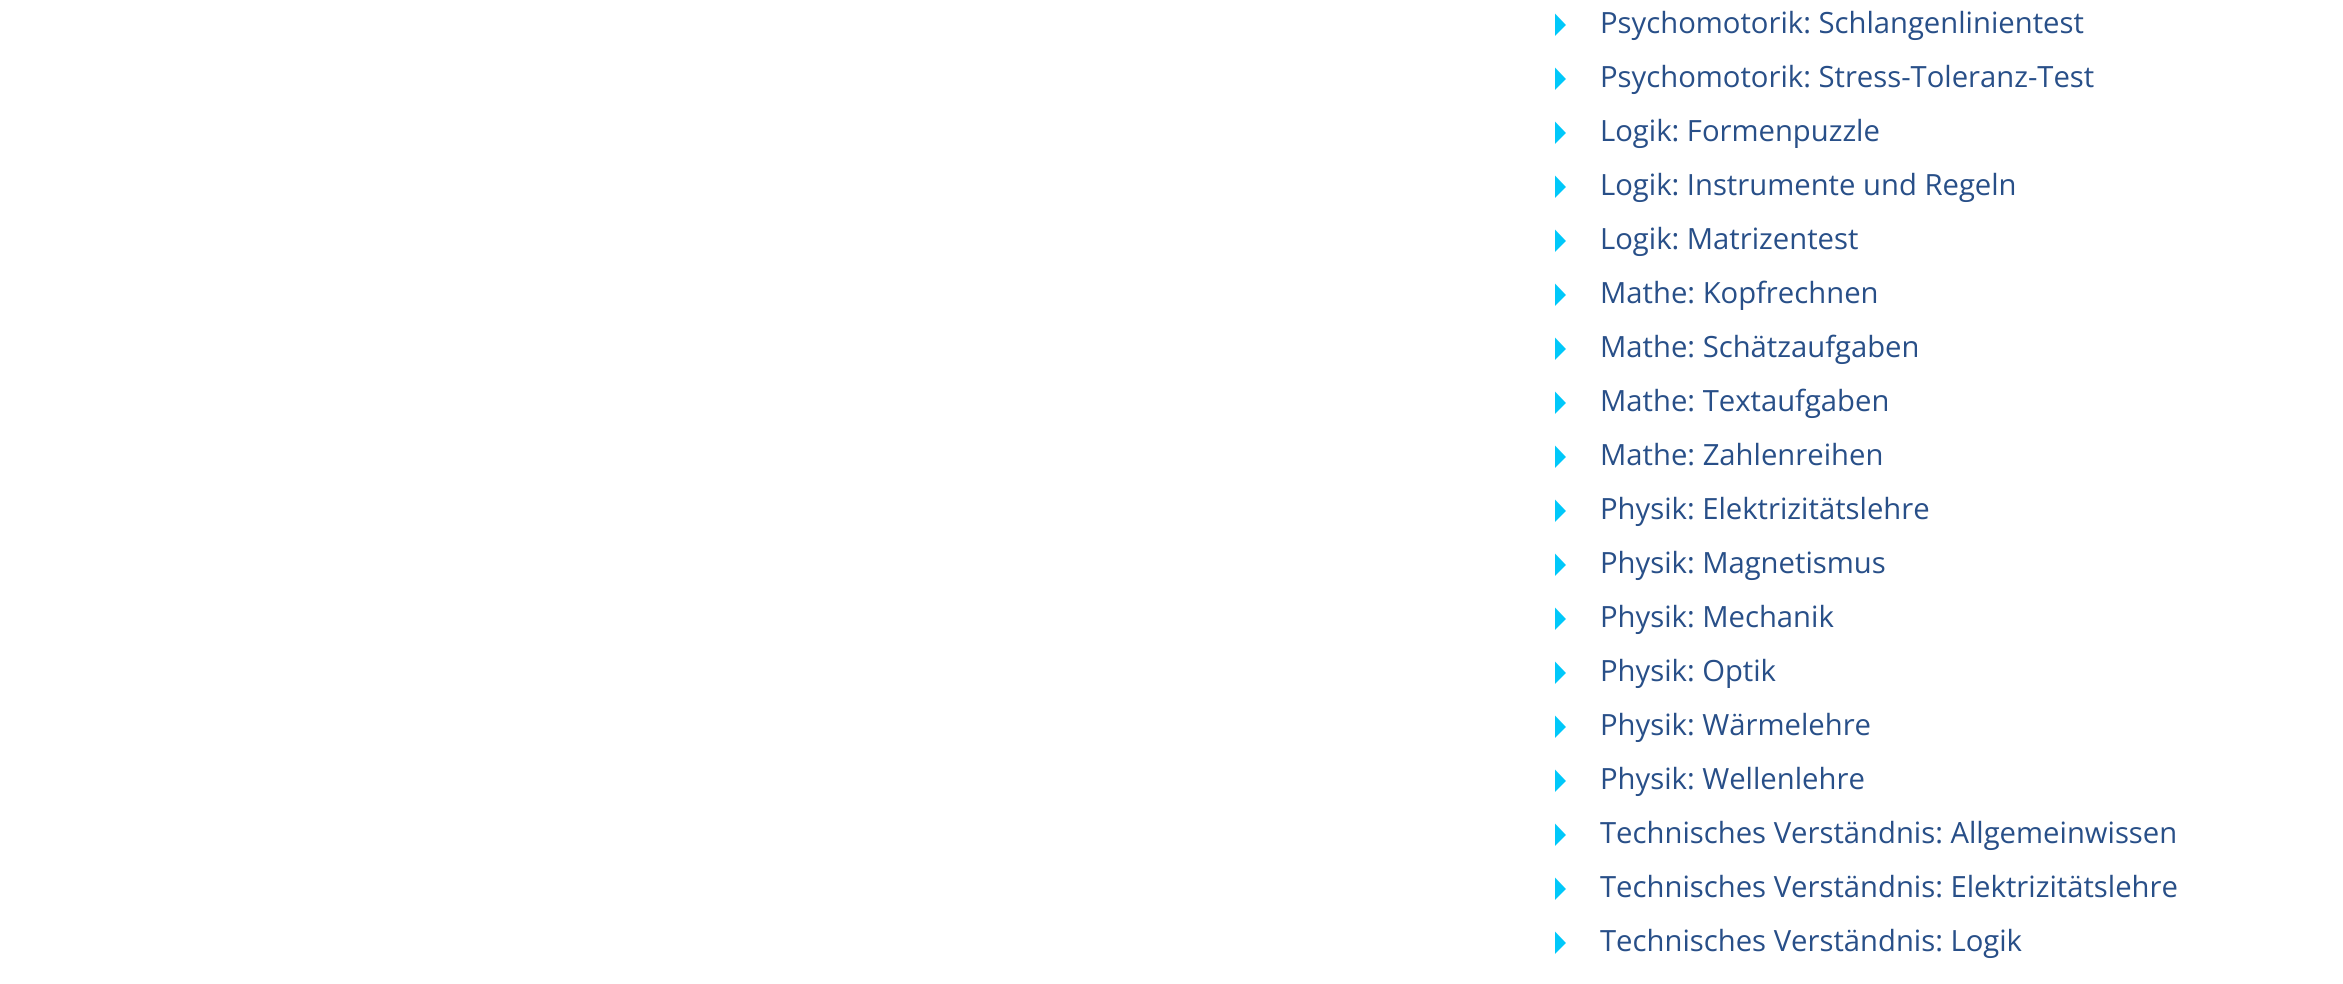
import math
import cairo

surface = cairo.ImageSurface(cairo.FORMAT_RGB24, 2343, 984)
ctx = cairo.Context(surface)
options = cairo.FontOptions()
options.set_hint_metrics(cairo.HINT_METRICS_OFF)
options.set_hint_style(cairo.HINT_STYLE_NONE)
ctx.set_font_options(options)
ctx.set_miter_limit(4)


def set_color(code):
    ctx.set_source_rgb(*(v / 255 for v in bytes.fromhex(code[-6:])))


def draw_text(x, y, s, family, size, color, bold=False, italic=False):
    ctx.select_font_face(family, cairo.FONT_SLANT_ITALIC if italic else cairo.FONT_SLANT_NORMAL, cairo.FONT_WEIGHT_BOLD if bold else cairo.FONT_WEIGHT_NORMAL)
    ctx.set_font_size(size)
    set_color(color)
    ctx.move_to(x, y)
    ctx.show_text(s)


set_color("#ffffff")
ctx.paint()
set_color("#00c8fa")
ctx.new_path()
ctx.move_to(1555, 36)
ctx.line_to(1555, 13.5)
ctx.line_to(1566, 25)
ctx.close_path()
ctx.fill()
draw_text(1600, 33, "Psychomotorik: Schlangenlinientest", "Open Sans", 29.25, "#284f88")
set_color("#00c8fa")
ctx.new_path()
ctx.move_to(1555, 90)
ctx.line_to(1555, 67.5)
ctx.line_to(1566, 79)
ctx.close_path()
ctx.fill()
draw_text(1600, 87, "Psychomotorik: Stress-Toleranz-Test", "Open Sans", 29.25, "#284f88")
set_color("#00c8fa")
ctx.new_path()
ctx.move_to(1555, 144)
ctx.line_to(1555, 121.5)
ctx.line_to(1566, 133)
ctx.close_path()
ctx.fill()
draw_text(1600, 141, "Logik: Formenpuzzle", "Open Sans", 29.25, "#284f88")
set_color("#00c8fa")
ctx.new_path()
ctx.move_to(1555, 198)
ctx.line_to(1555, 175.5)
ctx.line_to(1566, 187)
ctx.close_path()
ctx.fill()
draw_text(1600, 195, "Logik: Instrumente und Regeln", "Open Sans", 29.25, "#284f88")
set_color("#00c8fa")
ctx.new_path()
ctx.move_to(1555, 252)
ctx.line_to(1555, 229.5)
ctx.line_to(1566, 241)
ctx.close_path()
ctx.fill()
draw_text(1600, 249, "Logik: Matrizentest", "Open Sans", 29.25, "#284f88")
set_color("#00c8fa")
ctx.new_path()
ctx.move_to(1555, 306)
ctx.line_to(1555, 283.5)
ctx.line_to(1566, 295)
ctx.close_path()
ctx.fill()
draw_text(1600, 303, "Mathe: Kopfrechnen", "Open Sans", 29.25, "#284f88")
set_color("#00c8fa")
ctx.new_path()
ctx.move_to(1555, 360)
ctx.line_to(1555, 337.5)
ctx.line_to(1566, 349)
ctx.close_path()
ctx.fill()
draw_text(1600, 357, "Mathe: Schätzaufgaben", "Open Sans", 29.25, "#284f88")
set_color("#00c8fa")
ctx.new_path()
ctx.move_to(1555, 414)
ctx.line_to(1555, 391.5)
ctx.line_to(1566, 403)
ctx.close_path()
ctx.fill()
draw_text(1600, 411, "Mathe: Textaufgaben", "Open Sans", 29.25, "#284f88")
set_color("#00c8fa")
ctx.new_path()
ctx.move_to(1555, 468)
ctx.line_to(1555, 445.5)
ctx.line_to(1566, 457)
ctx.close_path()
ctx.fill()
draw_text(1600, 465, "Mathe: Zahlenreihen", "Open Sans", 29.25, "#284f88")
set_color("#00c8fa")
ctx.new_path()
ctx.move_to(1555, 522)
ctx.line_to(1555, 499.5)
ctx.line_to(1566, 511)
ctx.close_path()
ctx.fill()
draw_text(1600, 519, "Physik: Elektrizitätslehre", "Open Sans", 29.25, "#284f88")
set_color("#00c8fa")
ctx.new_path()
ctx.move_to(1555, 576)
ctx.line_to(1555, 553.5)
ctx.line_to(1566, 565)
ctx.close_path()
ctx.fill()
draw_text(1600, 573, "Physik: Magnetismus", "Open Sans", 29.25, "#284f88")
set_color("#00c8fa")
ctx.new_path()
ctx.move_to(1555, 630)
ctx.line_to(1555, 607.5)
ctx.line_to(1566, 619)
ctx.close_path()
ctx.fill()
draw_text(1600, 627, "Physik: Mechanik", "Open Sans", 29.25, "#284f88")
set_color("#00c8fa")
ctx.new_path()
ctx.move_to(1555, 684)
ctx.line_to(1555, 661.5)
ctx.line_to(1566, 673)
ctx.close_path()
ctx.fill()
draw_text(1600, 681, "Physik: Optik", "Open Sans", 29.25, "#284f88")
set_color("#00c8fa")
ctx.new_path()
ctx.move_to(1555, 738)
ctx.line_to(1555, 715.5)
ctx.line_to(1566, 727)
ctx.close_path()
ctx.fill()
draw_text(1600, 735, "Physik: Wärmelehre", "Open Sans", 29.25, "#284f88")
set_color("#00c8fa")
ctx.new_path()
ctx.move_to(1555, 792)
ctx.line_to(1555, 769.5)
ctx.line_to(1566, 781)
ctx.close_path()
ctx.fill()
draw_text(1600, 789, "Physik: Wellenlehre", "Open Sans", 29.25, "#284f88")
set_color("#00c8fa")
ctx.new_path()
ctx.move_to(1555, 846)
ctx.line_to(1555, 823.5)
ctx.line_to(1566, 835)
ctx.close_path()
ctx.fill()
draw_text(1600, 843, "Technisches Verständnis: Allgemeinwissen", "Open Sans", 29.25, "#284f88")
set_color("#00c8fa")
ctx.new_path()
ctx.move_to(1555, 900)
ctx.line_to(1555, 877.5)
ctx.line_to(1566, 889)
ctx.close_path()
ctx.fill()
draw_text(1600, 897, "Technisches Verständnis: Elektrizitätslehre", "Open Sans", 29.25, "#284f88")
set_color("#00c8fa")
ctx.new_path()
ctx.move_to(1555, 954)
ctx.line_to(1555, 931.5)
ctx.line_to(1566, 943)
ctx.close_path()
ctx.fill()
draw_text(1600, 951, "Technisches Verständnis: Logik", "Open Sans", 29.25, "#284f88")
surface.write_to_png("output.png")
